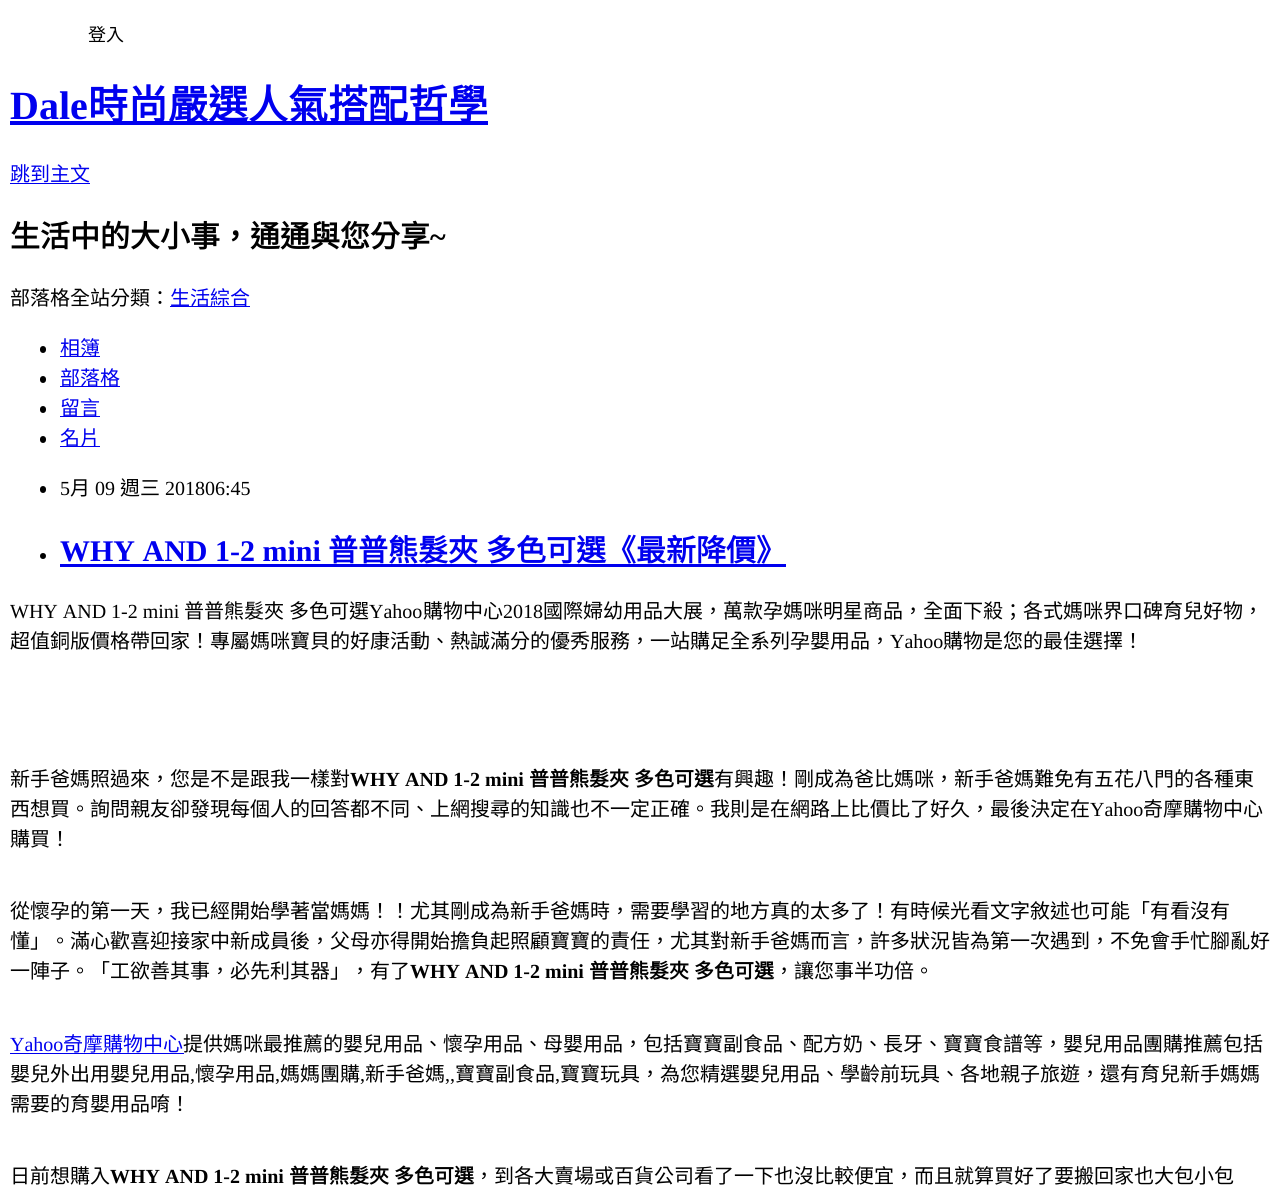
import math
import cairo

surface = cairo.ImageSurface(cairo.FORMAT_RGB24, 1279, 1193)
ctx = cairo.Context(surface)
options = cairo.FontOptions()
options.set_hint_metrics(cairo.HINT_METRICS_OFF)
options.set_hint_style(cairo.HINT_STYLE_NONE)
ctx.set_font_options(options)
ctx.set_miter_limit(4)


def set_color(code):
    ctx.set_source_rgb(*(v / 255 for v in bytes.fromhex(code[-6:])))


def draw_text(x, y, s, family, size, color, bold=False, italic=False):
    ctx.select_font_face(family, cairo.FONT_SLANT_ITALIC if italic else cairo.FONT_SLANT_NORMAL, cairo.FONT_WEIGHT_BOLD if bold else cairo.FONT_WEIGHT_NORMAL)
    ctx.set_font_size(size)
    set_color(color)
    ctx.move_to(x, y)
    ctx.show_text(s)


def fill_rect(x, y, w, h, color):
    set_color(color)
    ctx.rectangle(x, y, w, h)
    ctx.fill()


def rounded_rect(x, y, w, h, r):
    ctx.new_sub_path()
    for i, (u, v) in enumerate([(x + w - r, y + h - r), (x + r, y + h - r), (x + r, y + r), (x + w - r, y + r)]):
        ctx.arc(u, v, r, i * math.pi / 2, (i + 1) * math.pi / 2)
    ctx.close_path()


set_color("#ffffff")
ctx.paint()
draw_text(88, 41, "登入", "Noto Sans CJK TC", 18, "#000000")
draw_text(10, 119, "Dale", "Liberation Serif", 40, "#0000ee", bold=True)
fill_rect(10, 121, 478, 4, "#0000ee")
draw_text(88, 119, "時尚嚴選人氣搭配哲學", "Noto Sans CJK TC", 40, "#0000ee", bold=True)
draw_text(10, 181, "跳到主文", "Noto Sans CJK TC", 20, "#0000ee")
fill_rect(10, 183, 80, 1, "#0000ee")
draw_text(10, 247, "生活中的大小事，通通與您分享", "Noto Sans CJK TC", 30, "#000000", bold=True)
draw_text(430, 247, "~", "Liberation Serif", 30, "#000000", bold=True)
draw_text(10, 305, "部落格全站分類：", "Noto Sans CJK TC", 20, "#000000")
fill_rect(170, 306, 80, 1, "#0000ee")
draw_text(170, 305, "生活綜合", "Noto Sans CJK TC", 20, "#0000ee")
set_color("#000000")
rounded_rect(40, 346, 6, 7, 3)
ctx.fill()
fill_rect(60, 356, 40, 1, "#0000ee")
draw_text(60, 355, "相簿", "Noto Sans CJK TC", 20, "#0000ee")
set_color("#000000")
rounded_rect(40, 376, 6, 7, 3)
ctx.fill()
fill_rect(60, 386, 60, 1, "#0000ee")
draw_text(60, 385, "部落格", "Noto Sans CJK TC", 20, "#0000ee")
set_color("#000000")
rounded_rect(40, 406, 6, 7, 3)
ctx.fill()
fill_rect(60, 416, 40, 1, "#0000ee")
draw_text(60, 415, "留言", "Noto Sans CJK TC", 20, "#0000ee")
set_color("#000000")
rounded_rect(40, 436, 6, 7, 3)
ctx.fill()
fill_rect(60, 446, 40, 1, "#0000ee")
draw_text(60, 445, "名片", "Noto Sans CJK TC", 20, "#0000ee")
set_color("#000000")
rounded_rect(40, 486, 6, 7, 3)
ctx.fill()
draw_text(60, 495, "5", "Liberation Serif", 20, "#000000")
draw_text(70, 495, "月", "Noto Sans CJK TC", 20, "#000000")
draw_text(95, 495, "09", "Liberation Serif", 20, "#000000")
draw_text(120, 495, "週三", "Noto Sans CJK TC", 20, "#000000")
draw_text(165, 495, "201806:45", "Liberation Serif", 20, "#000000")
ctx.new_path()
ctx.arc(43, 556, 3, 0, 2 * math.pi)
ctx.fill()
draw_text(60, 561, "WHY AND 1-2 mini", "Liberation Serif", 30, "#0000ee", bold=True)
fill_rect(60, 564, 726, 3, "#0000ee")
draw_text(328, 561, "普普熊髮夾", "Noto Sans CJK TC", 30, "#0000ee", bold=True)
draw_text(486, 561, "多色可選《最新降價》", "Noto Sans CJK TC", 30, "#0000ee", bold=True)
draw_text(10, 618, "WHY AND 1-2 mini", "Liberation Serif", 20, "#000000")
draw_text(184, 618, "普普熊髮夾", "Noto Sans CJK TC", 20, "#000000")
draw_text(289, 618, "多色可選", "Noto Sans CJK TC", 20, "#000000")
draw_text(369, 618, "Yahoo", "Liberation Serif", 20, "#000000")
draw_text(423, 618, "購物中心", "Noto Sans CJK TC", 20, "#000000")
draw_text(503, 618, "2018", "Liberation Serif", 20, "#000000")
draw_text(543, 618, "國際婦幼用品大展，萬款孕媽咪明星商品，全面下殺；各式媽咪界口碑育兒好物，", "Noto Sans CJK TC", 20, "#000000")
draw_text(10, 648, "超值銅版價格帶回家！專屬媽咪寶貝的好康活動、熱誠滿分的優秀服務，一站購足全系列孕嬰用品，", "Noto Sans CJK TC", 20, "#000000")
draw_text(890, 648, "Yahoo", "Liberation Serif", 20, "#000000")
draw_text(943, 648, "購物是您的最佳選擇！", "Noto Sans CJK TC", 20, "#000000")
draw_text(10, 786, "新手爸媽照過來，您是不是跟我一樣對", "Noto Sans CJK TC", 20, "#000000")
draw_text(350, 786, "WHY AND 1-2 mini", "Liberation Serif", 20, "#000000", bold=True)
draw_text(529, 786, "普普熊髮夾", "Noto Sans CJK TC", 20, "#000000", bold=True)
draw_text(634, 786, "多色可選", "Noto Sans CJK TC", 20, "#000000", bold=True)
draw_text(714, 786, "有興趣！剛成為爸比媽咪，新手爸媽難免有五花八門的各種東", "Noto Sans CJK TC", 20, "#000000")
draw_text(10, 816, "西想買。詢問親友卻發現每個人的回答都不同、上網搜尋的知識也不一定正確。我則是在網路上比價比了好久，最後決定在", "Noto Sans CJK TC", 20, "#000000")
draw_text(1090, 816, "Yahoo", "Liberation Serif", 20, "#000000")
draw_text(1143, 816, "奇摩購物中心", "Noto Sans CJK TC", 20, "#000000")
draw_text(10, 846, "購買！", "Noto Sans CJK TC", 20, "#000000")
draw_text(10, 918, "從懷孕的第一天，我已經開始學著當媽媽！！尤其剛成為新手爸媽時，需要學習的地方真的太多了！有時候光看文字敘述也可能「有看沒有", "Noto Sans CJK TC", 20, "#000000")
draw_text(10, 948, "懂」。滿心歡喜迎接家中新成員後，父母亦得開始擔負起照顧寶寶的責任，尤其對新手爸媽而言，許多狀況皆為第一次遇到，不免會手忙腳亂好", "Noto Sans CJK TC", 20, "#000000")
draw_text(10, 978, "一陣子。「工欲善其事，必先利其器」，有了", "Noto Sans CJK TC", 20, "#000000")
draw_text(410, 978, "WHY AND 1-2 mini", "Liberation Serif", 20, "#000000", bold=True)
draw_text(589, 978, "普普熊髮夾", "Noto Sans CJK TC", 20, "#000000", bold=True)
draw_text(694, 978, "多色可選", "Noto Sans CJK TC", 20, "#000000", bold=True)
draw_text(774, 978, "，讓您事半功倍。", "Noto Sans CJK TC", 20, "#000000")
draw_text(10, 1051, "Yahoo", "Liberation Serif", 20, "#0000ee")
fill_rect(10, 1053, 174, 1, "#0000ee")
draw_text(63, 1051, "奇摩購物中心", "Noto Sans CJK TC", 20, "#0000ee")
draw_text(183, 1051, "提供媽咪最推薦的嬰兒用品、懷孕用品、母嬰用品，包括寶寶副食品、配方奶、長牙、寶寶食譜等，嬰兒用品團購推薦包括", "Noto Sans CJK TC", 20, "#000000")
draw_text(10, 1081, "嬰兒外出用嬰兒用品", "Noto Sans CJK TC", 20, "#000000")
draw_text(190, 1081, ",", "Liberation Serif", 20, "#000000")
draw_text(195, 1081, "懷孕用品", "Noto Sans CJK TC", 20, "#000000")
draw_text(275, 1081, ",", "Liberation Serif", 20, "#000000")
draw_text(280, 1081, "媽媽團購", "Noto Sans CJK TC", 20, "#000000")
draw_text(360, 1081, ",", "Liberation Serif", 20, "#000000")
draw_text(365, 1081, "新手爸媽", "Noto Sans CJK TC", 20, "#000000")
draw_text(445, 1081, ",,", "Liberation Serif", 20, "#000000")
draw_text(455, 1081, "寶寶副食品", "Noto Sans CJK TC", 20, "#000000")
draw_text(555, 1081, ",", "Liberation Serif", 20, "#000000")
draw_text(560, 1081, "寶寶玩具，為您精選嬰兒用品、學齡前玩具、各地親子旅遊，還有育兒新手媽媽", "Noto Sans CJK TC", 20, "#000000")
draw_text(10, 1111, "需要的育嬰用品唷！", "Noto Sans CJK TC", 20, "#000000")
draw_text(10, 1183, "日前想購入", "Noto Sans CJK TC", 20, "#000000")
draw_text(110, 1183, "WHY AND 1-2 mini", "Liberation Serif", 20, "#000000", bold=True)
draw_text(289, 1183, "普普熊髮夾", "Noto Sans CJK TC", 20, "#000000", bold=True)
draw_text(394, 1183, "多色可選", "Noto Sans CJK TC", 20, "#000000", bold=True)
draw_text(474, 1183, "，到各大賣場或百貨公司看了一下也沒比較便宜，而且就算買好了要搬回家也大包小包", "Noto Sans CJK TC", 20, "#000000")
surface.write_to_png("output.png")
